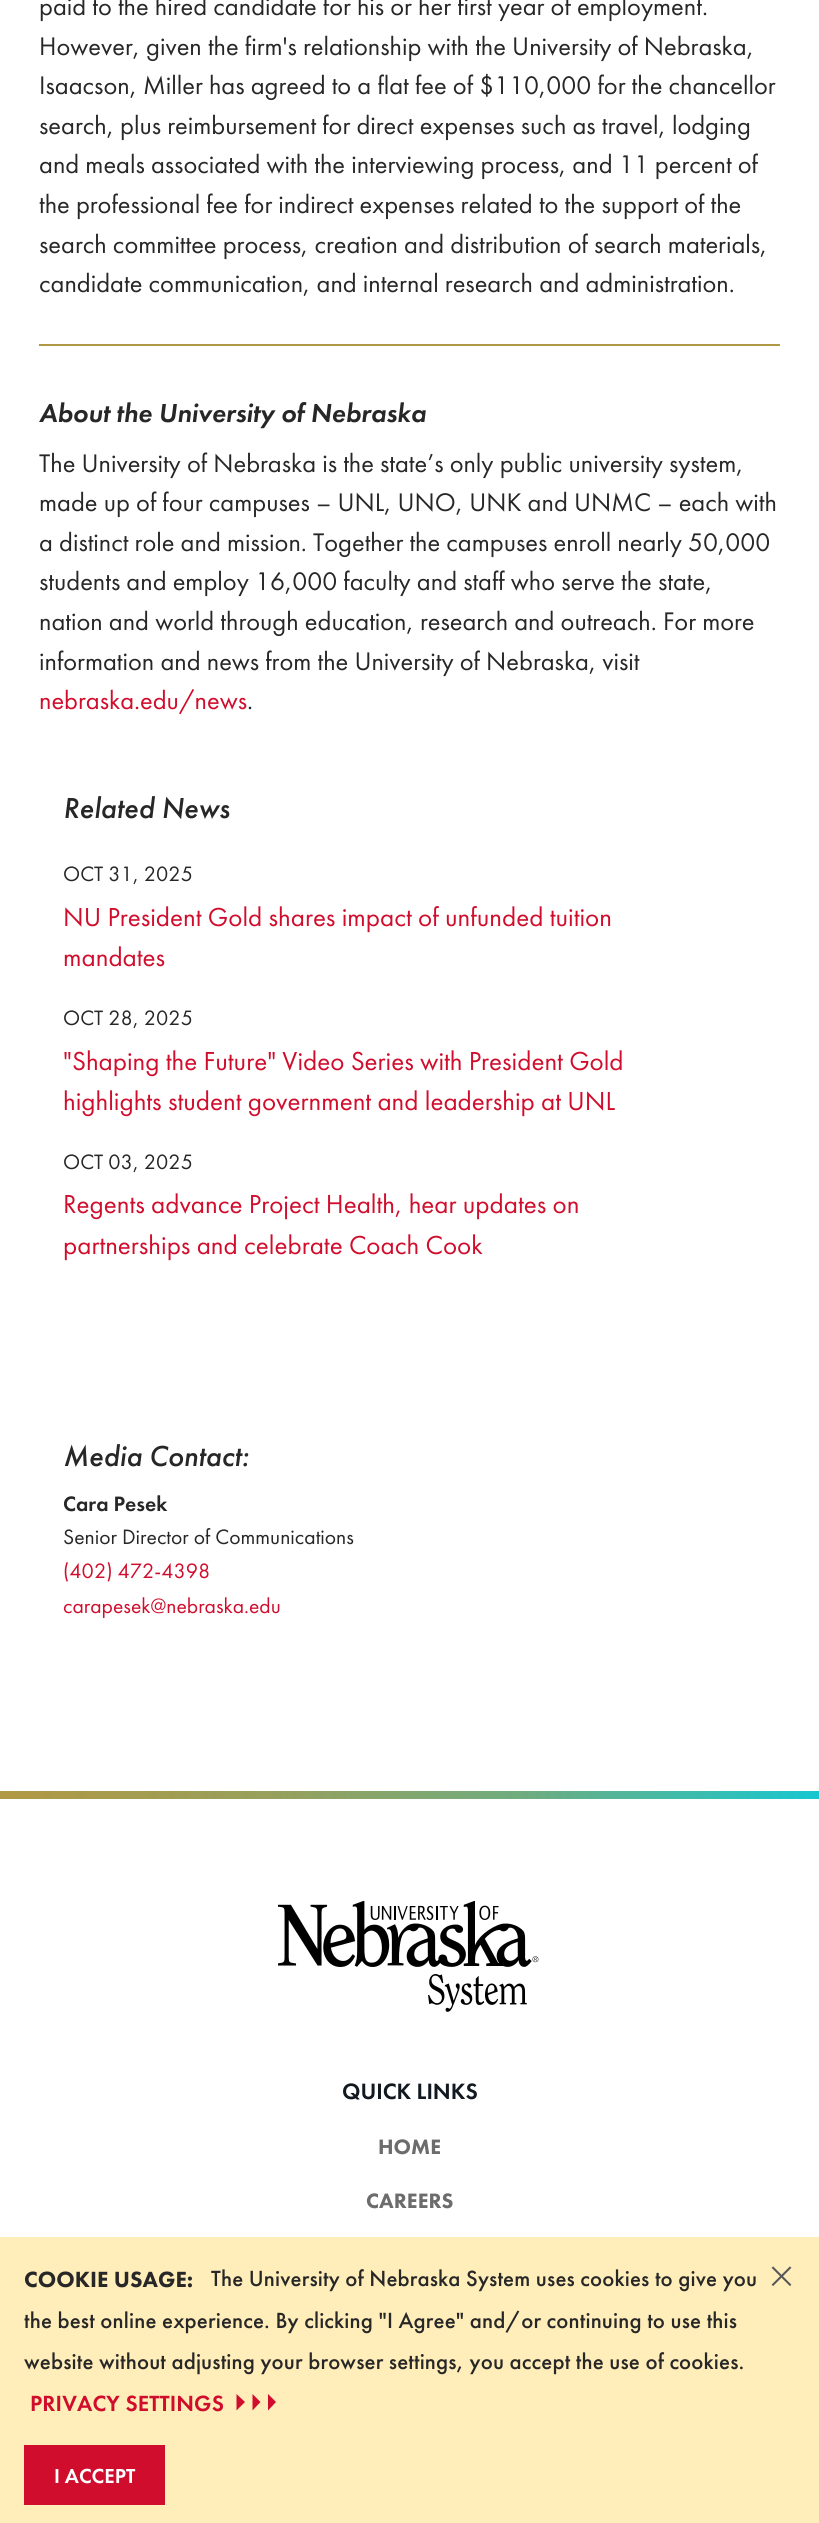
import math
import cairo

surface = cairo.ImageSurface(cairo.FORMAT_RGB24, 819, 2523)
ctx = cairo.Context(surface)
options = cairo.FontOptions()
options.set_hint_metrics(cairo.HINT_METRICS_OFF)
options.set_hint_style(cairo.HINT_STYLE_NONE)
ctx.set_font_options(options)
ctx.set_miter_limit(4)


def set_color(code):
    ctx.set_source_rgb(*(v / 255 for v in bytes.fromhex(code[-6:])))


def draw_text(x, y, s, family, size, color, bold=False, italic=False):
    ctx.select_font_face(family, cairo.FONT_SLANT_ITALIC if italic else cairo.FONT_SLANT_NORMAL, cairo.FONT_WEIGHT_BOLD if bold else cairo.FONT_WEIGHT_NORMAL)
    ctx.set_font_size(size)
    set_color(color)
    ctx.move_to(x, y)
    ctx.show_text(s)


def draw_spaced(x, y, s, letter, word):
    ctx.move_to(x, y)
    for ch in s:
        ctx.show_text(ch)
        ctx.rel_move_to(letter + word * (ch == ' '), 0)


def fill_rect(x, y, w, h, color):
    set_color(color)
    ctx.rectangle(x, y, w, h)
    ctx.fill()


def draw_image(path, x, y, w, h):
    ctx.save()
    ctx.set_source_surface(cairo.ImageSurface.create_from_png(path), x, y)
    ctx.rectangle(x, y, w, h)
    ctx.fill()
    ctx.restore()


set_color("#ffffff")
ctx.paint()
draw_text(39, 15, "paid to the hired candidate for his or her first year of employment.", "Futura PT", 26.4, "#282728")
draw_text(39, 55, "However, given the firm's relationship with the University of Nebraska,", "Futura PT", 26.4, "#282728")
draw_text(39, 94, "Isaacson, Miller has agreed to a flat fee of $110,000 for the chancellor", "Futura PT", 26.4, "#282728")
draw_text(39, 134, "search, plus reimbursement for direct expenses such as travel, lodging", "Futura PT", 26.4, "#282728")
draw_text(39, 173, "and meals associated with the interviewing process, and 11 percent of", "Futura PT", 26.4, "#282728")
draw_text(39, 213, "the professional fee for indirect expenses related to the support of the", "Futura PT", 26.4, "#282728")
draw_text(39, 253, "search committee process, creation and distribution of search materials,", "Futura PT", 26.4, "#282728")
draw_text(39, 292, "candidate communication, and internal research and administration.", "Futura PT", 26.4, "#282728")
fill_rect(39, 344, 741, 2, "#b19844")
draw_text(39, 422, "About the University of Nebraska", "Futura PT Medium", 27, "#282728", italic=True)
draw_text(39, 472, "The University of Nebraska is the state’s only public university system,", "Futura PT", 26.4, "#282728")
draw_text(39, 511, "made up of four campuses – UNL, UNO, UNK and UNMC – each with", "Futura PT", 26.4, "#282728")
draw_text(39, 551, "a distinct role and mission. Together the campuses enroll nearly 50,000", "Futura PT", 26.4, "#282728")
draw_text(39, 590, "students and employ 16,000 faculty and staff who serve the state,", "Futura PT", 26.4, "#282728")
draw_text(39, 630, "nation and world through education, research and outreach. For more", "Futura PT", 26.4, "#282728")
draw_text(39, 670, "information and news from the University of Nebraska, visit", "Futura PT", 26.4, "#282728")
draw_text(39, 709, "nebraska.edu/news", "Futura PT", 26.4, "#d00d2c")
draw_text(247, 709, ".", "Futura PT", 26.4, "#282728")
draw_text(63, 818, "Related News", "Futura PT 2 Medium", 30, "#282728", italic=True)
draw_text(63, 881, "OCT 31, 2025", "Futura PT", 21.6, "#282728")
draw_text(63, 926, "NU President Gold shares impact of unfunded tuition", "Futura PT", 27, "#d00d2c")
draw_text(63, 966, "mandates", "Futura PT", 27, "#d00d2c")
draw_text(63, 1025, "OCT 28, 2025", "Futura PT", 21.6, "#282728")
draw_text(63, 1070, "\"Shaping the Future\" Video Series with President Gold", "Futura PT", 27, "#d00d2c")
draw_text(63, 1110, "highlights student government and leadership at UNL", "Futura PT", 27, "#d00d2c")
draw_text(63, 1169, "OCT 03, 2025", "Futura PT", 21.6, "#282728")
draw_text(63, 1213, "Regents advance Project Health, hear updates on", "Futura PT", 27, "#d00d2c")
draw_text(63, 1254, "partnerships and celebrate Coach Cook", "Futura PT", 27, "#d00d2c")
draw_text(63, 1466, "Media Contact:", "Futura PT 2 Medium", 30, "#282728", italic=True)
draw_text(63, 1511, "Cara Pesek", "Futura PT Medium", 21.6, "#282728")
draw_text(63, 1544, "Senior Director of Communications", "Futura PT", 21.6, "#282728")
draw_text(63, 1578, "(402) 472-4398", "Futura PT", 21.6, "#d00d2c")
draw_text(63, 1613, "carapesek@nebraska.edu", "Futura PT", 21.6, "#d00d2c")
gradient = cairo.LinearGradient(0, 1795, 819, 1795)
gradient.add_color_stop_rgba(0, 0.694, 0.596, 0.267, 1)
gradient.add_color_stop_rgba(0.33, 0.592, 0.627, 0.361, 1)
gradient.add_color_stop_rgba(0.64, 0.435, 0.675, 0.498, 1)
gradient.add_color_stop_rgba(1, 0.09, 0.78, 0.816, 1)
ctx.set_source(gradient)
ctx.rectangle(0, 1791, 819, 8)
ctx.fill()
draw_image("assets/img1.png", 278, 1901, 261, 111)
draw_text(342, 2099, "QUICK LINKS", "Futura PT Medium", 23, "#111820")
draw_text(378, 2154, "HOME", "Futura PT Black", 21.6, "#6c6c6c")
draw_text(366, 2208, "CAREERS", "Futura PT Black", 21.6, "#6c6c6c")
fill_rect(0, 2237, 819, 286, "#ffeeb9")
draw_text(24, 2287, "COOKIE USAGE:", "Futura PT Black", 22.8, "#282728")
ctx.select_font_face("Futura PT 2 Medium")
draw_spaced(211, 2286, "The University of Nebraska System uses cookies to give you", 0.15, 0)
draw_spaced(24, 2328, "the best online experience. By clicking \"I Agree\" and/or continuing to use this", 0.15, 0)
draw_spaced(24, 2369, "website without adjusting your browser settings, you accept the use of cookies.", 0.15, 0)
ctx.select_font_face("Futura PT Medium")
set_color("#d00d2c")
draw_spaced(30, 2411, "PRIVACY SETTINGS", 0.15, 0)
ctx.new_path()
ctx.move_to(236.5, 2394)
ctx.line_to(236.5, 2410.5)
ctx.line_to(245, 2402)
ctx.close_path()
ctx.move_to(252.5, 2394)
ctx.line_to(252.5, 2410.5)
ctx.line_to(260.5, 2402)
ctx.close_path()
ctx.move_to(268, 2394)
ctx.line_to(268, 2410.5)
ctx.line_to(276, 2402)
ctx.close_path()
ctx.fill()
fill_rect(24, 2445, 141, 60, "#d00d2c")
draw_text(54, 2483, "I ACCEPT", "Futura PT Medium", 21, "#ffffff")
draw_text(768, 2294, "×", "Futura PT Light", 54, "#54585a")
surface.write_to_png("output.png")
